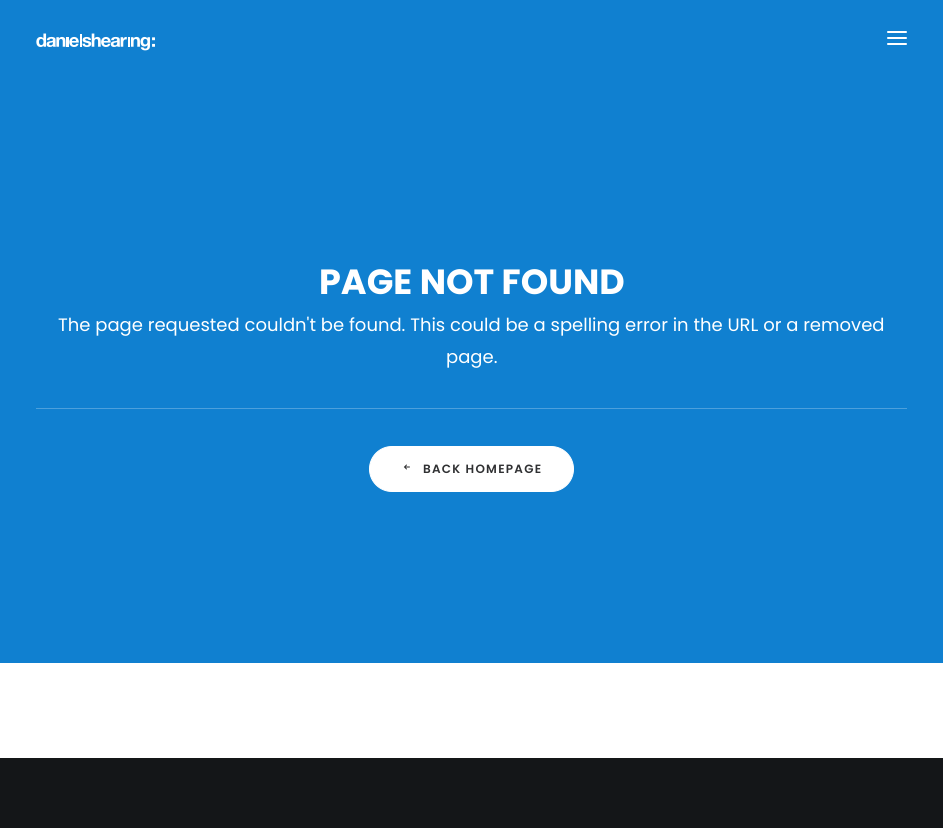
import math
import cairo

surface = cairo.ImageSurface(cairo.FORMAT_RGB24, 943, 828)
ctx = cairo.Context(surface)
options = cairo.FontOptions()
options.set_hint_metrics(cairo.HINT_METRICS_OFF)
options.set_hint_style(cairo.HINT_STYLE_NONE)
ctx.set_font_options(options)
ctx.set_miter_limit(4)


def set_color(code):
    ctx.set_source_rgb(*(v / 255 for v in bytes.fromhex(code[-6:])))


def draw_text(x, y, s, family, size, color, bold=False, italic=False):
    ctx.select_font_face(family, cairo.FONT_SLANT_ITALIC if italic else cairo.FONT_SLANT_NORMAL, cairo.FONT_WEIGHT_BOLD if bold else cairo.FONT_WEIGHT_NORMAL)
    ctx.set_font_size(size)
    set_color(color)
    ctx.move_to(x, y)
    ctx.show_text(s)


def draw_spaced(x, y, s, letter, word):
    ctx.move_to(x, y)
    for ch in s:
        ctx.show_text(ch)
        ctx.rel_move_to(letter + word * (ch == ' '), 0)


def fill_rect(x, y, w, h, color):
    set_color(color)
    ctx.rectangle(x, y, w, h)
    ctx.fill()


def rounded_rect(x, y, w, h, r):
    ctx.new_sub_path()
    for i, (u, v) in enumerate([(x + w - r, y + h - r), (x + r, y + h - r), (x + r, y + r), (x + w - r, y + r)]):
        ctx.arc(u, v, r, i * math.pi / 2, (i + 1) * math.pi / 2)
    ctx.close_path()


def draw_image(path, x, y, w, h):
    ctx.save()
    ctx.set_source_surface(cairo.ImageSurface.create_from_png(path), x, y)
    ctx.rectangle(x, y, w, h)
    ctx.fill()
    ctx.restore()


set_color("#141618")
ctx.paint()
fill_rect(0, 0, 943, 663, "#1080d0")
draw_image("assets/img1.png", 36, 33, 119, 18)
set_color("#ffffff")
rounded_rect(887, 37, 20, 2, 1)
ctx.fill()
rounded_rect(887, 31, 20, 2, 1)
ctx.fill()
rounded_rect(887, 43, 20, 2, 1)
ctx.fill()
draw_text(319, 294, "PAGE NOT FOUND", "Poppins", 35, "#ffffff", bold=True)
draw_text(58, 331, "The page requested couldn't be found. This could be a spelling error in the URL or a removed", "Poppins", 18, "#ffffff")
draw_text(446, 363, "page.", "Poppins", 18, "#ffffff")
fill_rect(36, 408, 871, 1, "#4ca0dc")
set_color("#ffffff")
rounded_rect(369.5, 446.5, 204, 45, 22.5)
ctx.fill_preserve()
ctx.set_line_width(1)
ctx.stroke()
draw_image("assets/img2.png", 403, 464, 7, 6)
ctx.select_font_face("Poppins SemiBold")
ctx.set_font_size(12)
set_color("#303133")
draw_spaced(423, 473, "BACK HOMEPAGE", 1.25, 0)
fill_rect(0, 663, 943, 95, "#ffffff")
surface.write_to_png("output.png")
